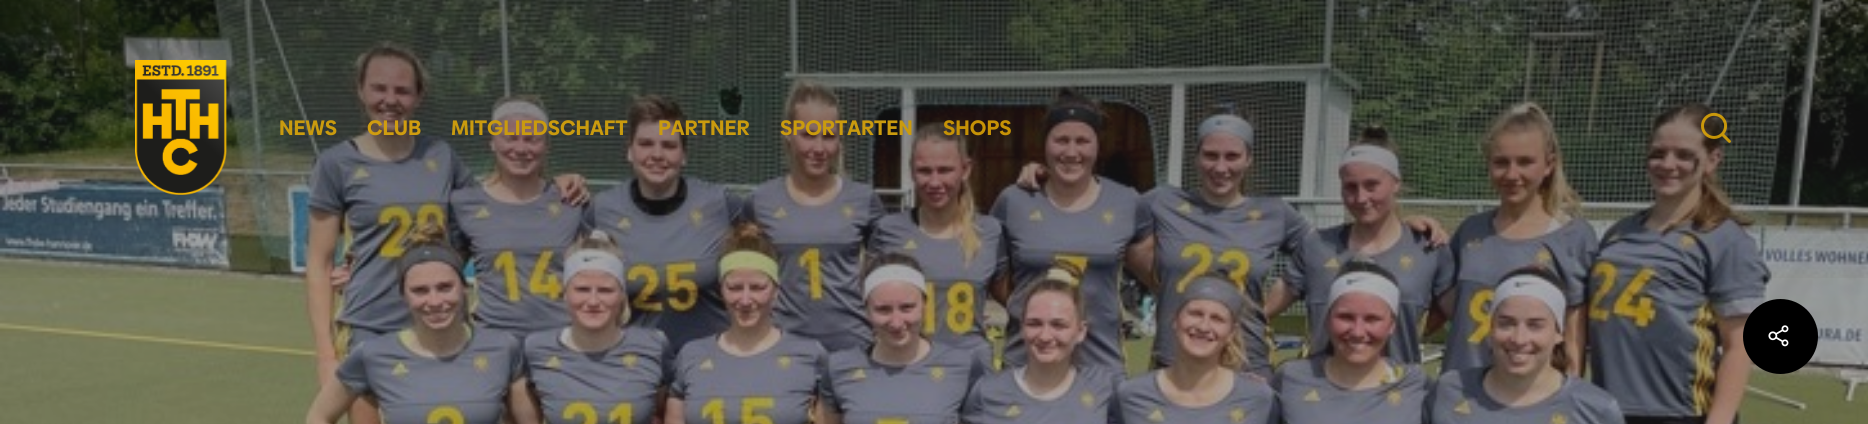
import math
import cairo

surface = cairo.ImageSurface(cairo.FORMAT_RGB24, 1868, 424)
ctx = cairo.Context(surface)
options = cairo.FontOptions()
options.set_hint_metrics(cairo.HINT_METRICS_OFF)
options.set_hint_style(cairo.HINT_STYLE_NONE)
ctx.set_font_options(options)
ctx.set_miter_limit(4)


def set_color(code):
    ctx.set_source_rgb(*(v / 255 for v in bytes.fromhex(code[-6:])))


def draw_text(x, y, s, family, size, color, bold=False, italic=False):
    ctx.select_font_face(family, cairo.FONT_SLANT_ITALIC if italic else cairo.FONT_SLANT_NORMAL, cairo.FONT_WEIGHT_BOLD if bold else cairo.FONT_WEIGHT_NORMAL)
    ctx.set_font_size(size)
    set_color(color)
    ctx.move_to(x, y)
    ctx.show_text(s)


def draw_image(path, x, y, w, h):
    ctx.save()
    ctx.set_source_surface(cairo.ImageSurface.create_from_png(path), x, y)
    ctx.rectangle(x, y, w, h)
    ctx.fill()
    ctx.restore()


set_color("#ffffff")
ctx.paint()
draw_image("assets/img1.png", 0, 0, 1868, 424)
set_color("#000000")
ctx.arc(1780.5, 336.5, 37.5, 0, 2 * math.pi)
ctx.fill()
draw_image("assets/img2.png", 1768, 325, 21, 22)
gradient = cairo.LinearGradient(935, 306, 935, 0)
gradient.add_color_stop_rgba(0, 1, 1, 1, 0)
gradient.add_color_stop_rgba(0.01, 0, 0, 0, 0)
gradient.add_color_stop_rgba(0.16, 0, 0, 0, 0.04)
gradient.add_color_stop_rgba(0.75, 0, 0, 0, 0.23)
gradient.add_color_stop_rgba(1, 0, 0, 0, 0.33)
ctx.set_source(gradient)
ctx.rectangle(0, 0, 1868, 278)
ctx.fill()
draw_image("assets/img3.png", 135, 60, 92, 135)
draw_text(279, 135, "NEWS", "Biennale", 21, "#ca9b0e", bold=True)
draw_text(367, 135, "CLUB", "Biennale", 21, "#d09d10", bold=True)
draw_text(451, 135, "MITGLIEDSCHAFT", "Biennale", 21, "#ca9b0e", bold=True)
draw_text(658, 135, "PARTNER", "Biennale", 21, "#ca9b0e", bold=True)
draw_text(780, 135, "SPORTARTEN", "Biennale", 21, "#ca9b0e", bold=True)
draw_text(943, 135, "SHOPS", "Biennale", 21, "#c69206", bold=True)
draw_image("assets/img4.png", 1701, 112, 30, 31)
surface.write_to_png("output.png")
